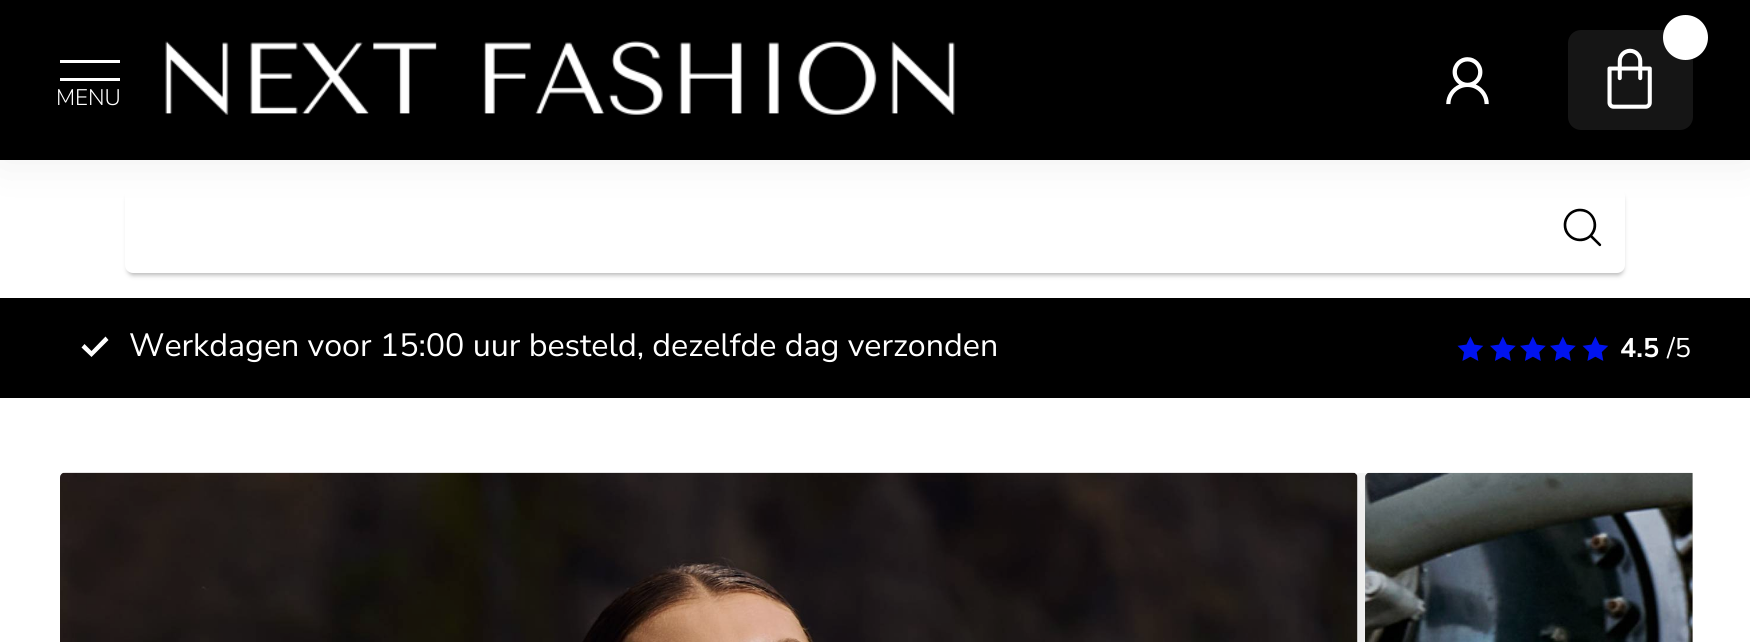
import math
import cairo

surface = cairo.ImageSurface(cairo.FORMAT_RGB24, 1750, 642)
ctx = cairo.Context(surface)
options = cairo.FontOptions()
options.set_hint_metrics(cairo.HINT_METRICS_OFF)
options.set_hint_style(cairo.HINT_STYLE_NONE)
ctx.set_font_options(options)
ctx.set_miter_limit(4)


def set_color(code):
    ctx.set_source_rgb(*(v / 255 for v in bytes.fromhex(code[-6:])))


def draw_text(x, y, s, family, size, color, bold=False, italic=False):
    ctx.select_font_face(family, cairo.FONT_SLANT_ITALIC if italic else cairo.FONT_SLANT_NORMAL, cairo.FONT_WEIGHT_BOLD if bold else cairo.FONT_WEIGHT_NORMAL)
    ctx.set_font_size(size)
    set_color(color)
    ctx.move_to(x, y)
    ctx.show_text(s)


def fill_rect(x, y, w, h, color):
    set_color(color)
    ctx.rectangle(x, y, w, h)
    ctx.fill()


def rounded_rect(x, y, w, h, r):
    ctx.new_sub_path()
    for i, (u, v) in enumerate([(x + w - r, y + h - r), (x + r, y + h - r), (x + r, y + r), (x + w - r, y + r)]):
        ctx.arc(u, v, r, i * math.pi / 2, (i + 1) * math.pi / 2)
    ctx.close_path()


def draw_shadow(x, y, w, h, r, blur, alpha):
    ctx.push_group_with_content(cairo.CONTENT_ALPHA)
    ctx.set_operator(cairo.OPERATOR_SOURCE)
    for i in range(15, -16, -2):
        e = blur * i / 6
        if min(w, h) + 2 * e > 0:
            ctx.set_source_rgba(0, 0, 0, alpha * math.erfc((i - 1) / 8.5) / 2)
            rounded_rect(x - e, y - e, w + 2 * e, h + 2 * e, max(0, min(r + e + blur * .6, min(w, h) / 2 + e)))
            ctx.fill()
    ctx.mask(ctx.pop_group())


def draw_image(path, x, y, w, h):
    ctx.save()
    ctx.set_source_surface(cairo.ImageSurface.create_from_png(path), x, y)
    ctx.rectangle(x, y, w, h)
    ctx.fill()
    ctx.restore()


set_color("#ffffff")
ctx.paint()
set_color("#9b9b9b")
draw_shadow(128, 195, 1495, 80, 5, 2.5, 0.75)
set_color("#ffffff")
rounded_rect(125, 188, 1500, 85, 8)
ctx.fill()
draw_image("assets/img4.png", 1563, 208, 39, 39)
set_color("#000000")
draw_shadow(0, 0, 1750, 160, 0, 25, 0.07)
fill_rect(0, 0, 1750, 160, "#000000")
fill_rect(60, 60, 60, 3, "#ffffff")
fill_rect(60, 78, 60, 3, "#ffffff")
draw_text(56, 105, "MENU", "Nunito Sans Light", 22.5, "#ffffff")
draw_image("assets/img1.png", 165, 41, 790, 74)
draw_image("assets/img2.png", 1446, 57, 43, 48)
set_color("#151515")
rounded_rect(1568, 30, 125, 100, 13)
ctx.fill()
set_color("#ffffff")
ctx.arc(1685.5, 37.5, 22.5, 0, 2 * math.pi)
ctx.fill()
draw_image("assets/img3.png", 1607, 48, 45, 61)
ctx.save()
ctx.rectangle(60, 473, 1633, 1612)
ctx.clip()
set_color("#000000")
draw_shadow(73, 485, 1272, 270, 0, 37.5, 0.1)
ctx.restore()
draw_image("assets/img7.png", 60, 472, 1298, 170)
ctx.set_source_rgba(0, 0, 0, 0.1)
ctx.new_path()
ctx.move_to(65, 473)
ctx.line_to(1353, 473)
ctx.curve_to(1356, 473, 1358, 475, 1358, 478)
ctx.line_to(1358, 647)
ctx.line_to(60, 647)
ctx.line_to(60, 478)
ctx.curve_to(60, 475, 62, 473, 65, 473)
ctx.close_path()
ctx.fill()
ctx.save()
ctx.rectangle(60, 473, 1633, 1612)
ctx.clip()
set_color("#000000")
draw_shadow(1378, 485, 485, 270, 0, 37.5, 0.1)
ctx.restore()
fill_rect(0, 298, 1750, 100, "#000000")
set_color("#ffffff")
ctx.new_path()
ctx.move_to(91.5, 357)
ctx.line_to(81.5, 347.5)
ctx.line_to(84.5, 344)
ctx.line_to(91.5, 351)
ctx.line_to(105.5, 336.5)
ctx.line_to(108.5, 340)
ctx.close_path()
ctx.fill()
draw_text(129, 356, "Werkdagen voor 15:00 uur besteld, dezelfde dag verzonden", "Nunito Sans", 32.2, "#ffffff")
draw_image("assets/img5.png", 1457, 336, 27, 25)
draw_image("assets/img6.png", 1490, 336, 26, 25)
draw_image("assets/img6.png", 1520, 336, 26, 25)
draw_image("assets/img6.png", 1550, 336, 26, 25)
draw_image("assets/img5.png", 1582, 336, 27, 25)
draw_text(1620, 357, "4.5", "Nunito Sans", 27, "#ffffff", bold=True)
draw_text(1667, 357, "/5", "Nunito Sans", 27, "#ffffff")
draw_image("assets/img8.png", 1365, 472, 328, 170)
ctx.set_source_rgba(0, 0, 0, 0.1)
ctx.new_path()
ctx.move_to(1370, 473)
ctx.line_to(1693, 473)
ctx.line_to(1693, 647)
ctx.line_to(1365, 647)
ctx.line_to(1365, 478)
ctx.curve_to(1365, 475, 1367, 473, 1370, 473)
ctx.close_path()
ctx.fill()
surface.write_to_png("output.png")
